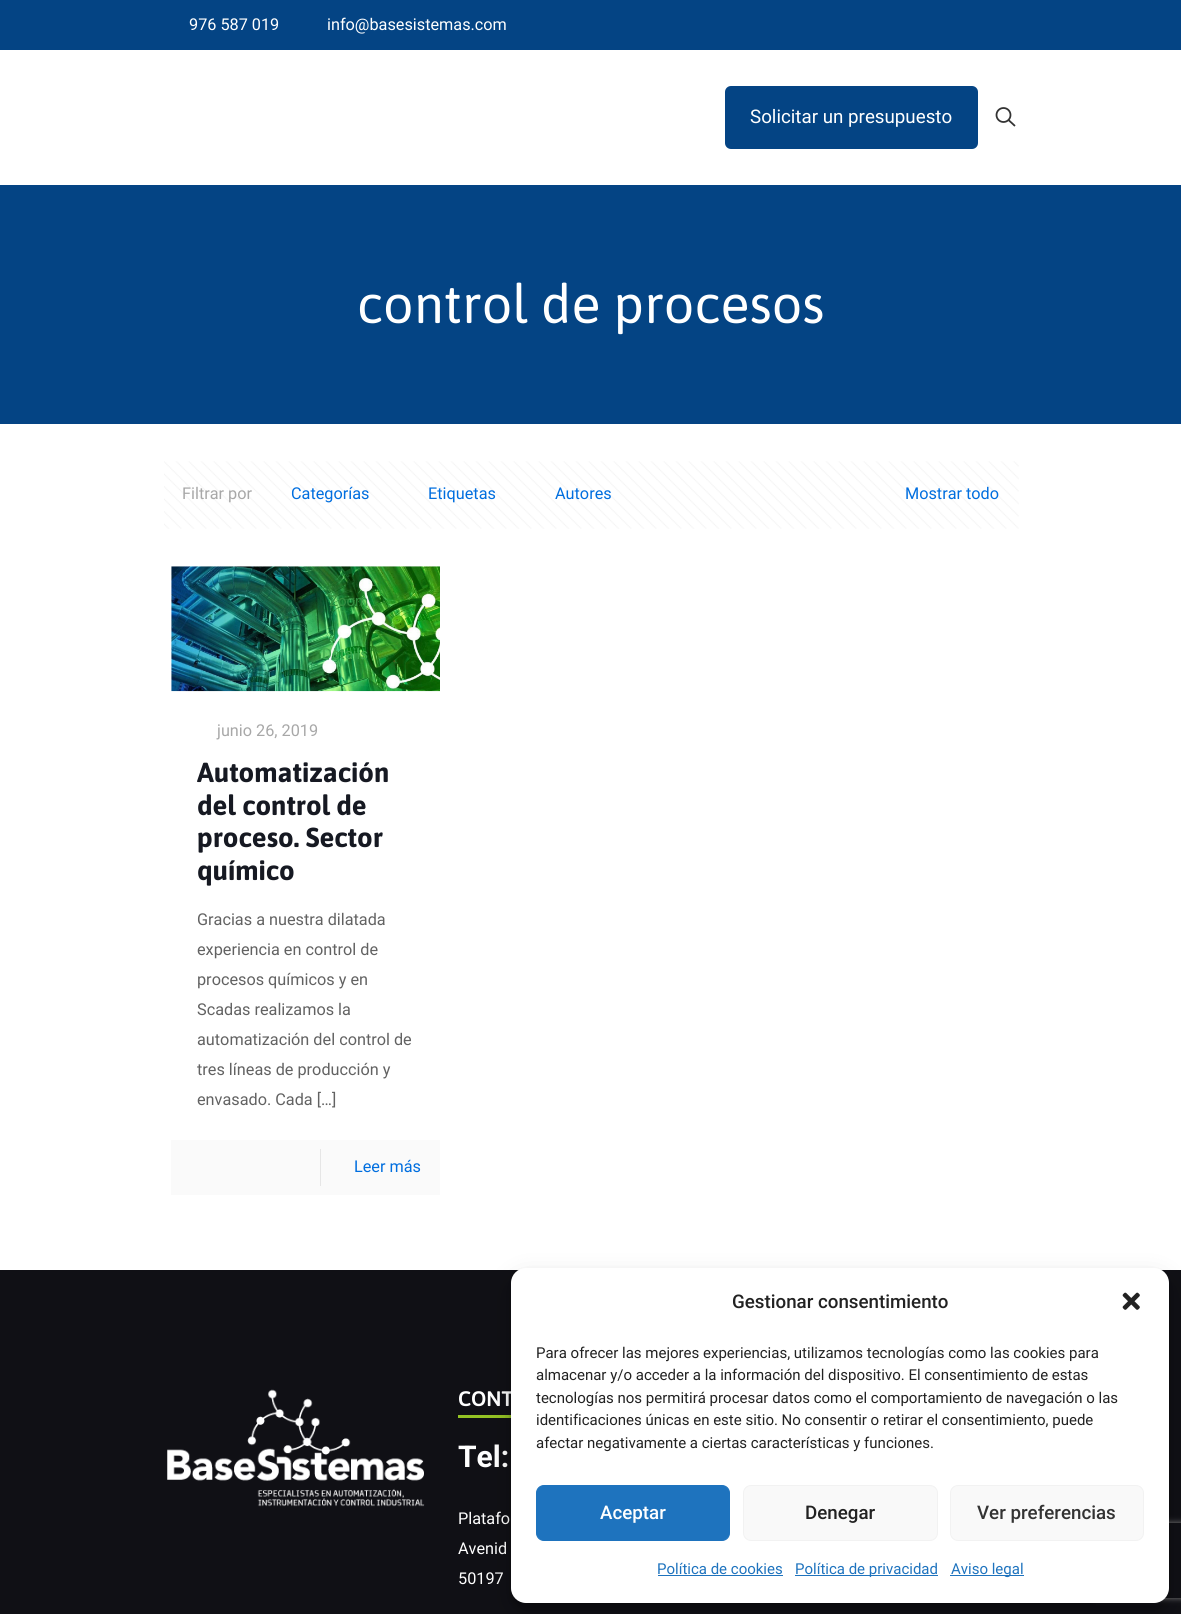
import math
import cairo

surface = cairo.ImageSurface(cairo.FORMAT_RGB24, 1181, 1614)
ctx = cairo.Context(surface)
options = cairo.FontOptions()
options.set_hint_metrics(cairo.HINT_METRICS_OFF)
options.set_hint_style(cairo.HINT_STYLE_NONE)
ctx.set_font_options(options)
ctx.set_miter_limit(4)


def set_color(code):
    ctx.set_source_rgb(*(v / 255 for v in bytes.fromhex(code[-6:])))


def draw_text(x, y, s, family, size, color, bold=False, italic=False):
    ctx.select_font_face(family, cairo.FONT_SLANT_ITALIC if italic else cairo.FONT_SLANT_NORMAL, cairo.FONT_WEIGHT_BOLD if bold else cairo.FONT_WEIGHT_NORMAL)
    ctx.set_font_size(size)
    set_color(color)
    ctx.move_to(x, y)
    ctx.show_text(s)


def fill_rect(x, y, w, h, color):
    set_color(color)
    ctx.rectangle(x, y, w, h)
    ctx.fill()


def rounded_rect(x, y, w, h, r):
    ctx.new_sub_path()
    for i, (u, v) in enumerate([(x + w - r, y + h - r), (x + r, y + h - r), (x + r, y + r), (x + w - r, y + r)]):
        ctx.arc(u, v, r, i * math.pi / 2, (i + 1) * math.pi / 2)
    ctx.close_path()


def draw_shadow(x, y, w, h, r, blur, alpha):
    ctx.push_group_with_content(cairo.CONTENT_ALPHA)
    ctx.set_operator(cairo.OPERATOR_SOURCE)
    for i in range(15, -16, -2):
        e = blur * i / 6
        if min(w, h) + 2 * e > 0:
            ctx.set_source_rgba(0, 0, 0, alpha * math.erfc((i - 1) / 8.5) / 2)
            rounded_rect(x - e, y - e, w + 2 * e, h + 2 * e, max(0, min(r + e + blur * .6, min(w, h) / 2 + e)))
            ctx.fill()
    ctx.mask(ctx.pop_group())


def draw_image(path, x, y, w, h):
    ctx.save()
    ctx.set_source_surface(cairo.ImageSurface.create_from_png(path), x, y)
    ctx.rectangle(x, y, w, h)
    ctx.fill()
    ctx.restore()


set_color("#ffffff")
ctx.paint()
fill_rect(0, 0, 1181, 50, "#044484")
draw_text(189, 30, "976 587 019", "Roboto", 16.25, "#ffffff")
draw_text(327, 30, "info@basesistemas.com", "Roboto", 16.25, "#ffffff")
set_color("#044484")
rounded_rect(725, 86, 253, 63, 6)
ctx.fill()
draw_text(750, 123, "Solicitar un presupuesto", "Roboto", 18.75, "#ffffff")
ctx.new_path()
ctx.arc(1003.5, 115, 7, 0, 2 * math.pi)
set_color("#333333")
ctx.set_line_width(1.8)
ctx.stroke()
ctx.new_path()
ctx.move_to(1008.5, 120)
ctx.line_to(1015, 126)
ctx.stroke()
fill_rect(0, 185, 1181, 239, "#044484")
draw_text(357, 323, "control de procesos", "Asap", 53.75, "#ffffff")
draw_image("assets/img1.png", 164, 461, 855, 68)
draw_text(182, 499, "Filtrar por", "Roboto", 16.25, "#a8a8a8")
draw_text(291, 499, "Categorías", "Roboto", 16.25, "#006edf")
draw_text(428, 499, "Etiquetas", "Roboto", 16.25, "#006edf")
draw_text(555, 499, "Autores", "Roboto", 16.25, "#006edf")
draw_text(905, 499, "Mostrar todo", "Roboto", 16.25, "#006edf")
draw_image("assets/img2.png", 171, 566, 269, 126)
draw_text(329, 606, "Zoom", "Roboto", 15, "#359042")
draw_text(322, 659, "Details", "Roboto", 15, "#3ca84d")
draw_text(217, 736, "junio 26, 2019", "Roboto", 16.25, "#a8a8a8")
draw_text(197, 782, "Automatización", "Asap", 27.5, "#161922", bold=True)
draw_text(197, 815, "del control de", "Asap", 27.5, "#161922", bold=True)
draw_text(197, 847, "proceso. Sector", "Asap", 27.5, "#161922", bold=True)
draw_text(197, 880, "químico", "Asap", 27.5, "#161922", bold=True)
draw_text(197, 925, "Gracias a nuestra dilatada", "Roboto", 16.25, "#626262")
draw_text(197, 955, "experiencia en control de", "Roboto", 16.25, "#626262")
draw_text(197, 985, "procesos químicos y en", "Roboto", 16.25, "#626262")
draw_text(197, 1015, "Scadas realizamos la", "Roboto", 16.25, "#626262")
draw_text(197, 1045, "automatización del control de", "Roboto", 16.25, "#626262")
draw_text(197, 1075, "tres líneas de producción y", "Roboto", 16.25, "#626262")
draw_text(197, 1105, "envasado. Cada […]", "Roboto", 16.25, "#626262")
fill_rect(171, 1140, 269, 55, "#fafafa")
fill_rect(320, 1149, 1, 37, "#e6e6e6")
draw_text(354, 1172, "Leer más", "Roboto", 16.25, "#006edf")
fill_rect(0, 1270, 1181, 344, "#101015")
draw_image("assets/img3.png", 167, 1389, 258, 118)
draw_text(458, 1406, "CONT", "Asap SemiBold", 21, "#ffffff")
fill_rect(458, 1415, 53, 3, "#94c324")
draw_text(458, 1467, "Tel:", "Roboto", 30, "#ffffff", bold=True)
draw_text(458, 1524, "Platafo", "Roboto", 16.25, "#ffffff")
draw_text(458, 1554, "Avenid", "Roboto", 16.25, "#ffffff")
draw_text(458, 1584, "50197", "Roboto", 16.25, "#ffffff")
set_color("#000000")
draw_shadow(511, 1275, 658, 335, 15, 4, 0.23)
draw_shadow(511, 1280, 658, 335, 15, 12.5, 0.19)
ctx.save()
ctx.set_fill_rule(cairo.FILL_RULE_EVEN_ODD)
ctx.new_path()
ctx.move_to(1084, 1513)
ctx.line_to(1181, 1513)
ctx.line_to(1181, 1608)
ctx.line_to(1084, 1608)
ctx.close_path()
ctx.move_to(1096.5, 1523)
ctx.line_to(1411.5, 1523)
ctx.curve_to(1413, 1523, 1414, 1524, 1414, 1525.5)
ctx.line_to(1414, 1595.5)
ctx.curve_to(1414, 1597, 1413, 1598, 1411.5, 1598)
ctx.line_to(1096.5, 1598)
ctx.curve_to(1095, 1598, 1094, 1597, 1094, 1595.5)
ctx.line_to(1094, 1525.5)
ctx.curve_to(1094, 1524, 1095, 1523, 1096.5, 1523)
ctx.close_path()
ctx.clip()
set_color("#808080")
draw_shadow(1094, 1523, 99, 75, 2.5, 3, 1)
ctx.restore()
set_color("#ffffff")
rounded_rect(511, 1268, 658, 335, 15)
ctx.fill()
draw_text(732, 1308, "Gestionar consentimiento", "Roboto Medium", 18.75, "#222222")
draw_image("assets/img4.png", 1122, 1292, 18, 18)
draw_text(536, 1358, "Para ofrecer las mejores experiencias, utilizamos tecnologías como las cookies para", "Roboto", 15, "#222222")
draw_text(536, 1380, "almacenar y/o acceder a la información del dispositivo. El consentimiento de estas", "Roboto", 15, "#222222")
draw_text(536, 1403, "tecnologías nos permitirá procesar datos como el comportamiento de navegación o las", "Roboto", 15, "#222222")
draw_text(536, 1425, "identificaciones únicas en este sitio. No consentir o retirar el consentimiento, puede", "Roboto", 15, "#222222")
draw_text(536, 1448, "afectar negativamente a ciertas características y funciones.", "Roboto", 15, "#222222")
set_color("#1e73be")
rounded_rect(536.5, 1485.5, 193, 55, 7.5)
ctx.fill_preserve()
ctx.set_line_width(1)
ctx.stroke()
draw_text(600, 1519, "Aceptar", "Roboto Medium", 18.75, "#ffffff")
set_color("#f9f9f9")
rounded_rect(743.5, 1485.5, 194, 55, 7.5)
ctx.fill_preserve()
set_color("#f2f2f2")
ctx.stroke()
draw_text(805, 1519, "Denegar", "Roboto Medium", 18.75, "#222222")
set_color("#f9f9f9")
rounded_rect(950.5, 1485.5, 193, 55, 7.5)
ctx.fill_preserve()
set_color("#f2f2f2")
ctx.stroke()
draw_text(977, 1519, "Ver preferencias", "Roboto Medium", 18.75, "#333333")
draw_text(657, 1574, "Política de cookies", "Roboto", 15, "#1e73be")
fill_rect(658, 1575, 125, 1, "#1e73be")
fill_rect(795, 1575, 143, 1, "#1e73be")
draw_text(795, 1574, "Política de privacidad", "Roboto", 15, "#1e73be")
fill_rect(950, 1575, 74, 1, "#1e73be")
draw_text(951, 1574, "Aviso legal", "Roboto", 15, "#1e73be")
surface.write_to_png("output.png")
